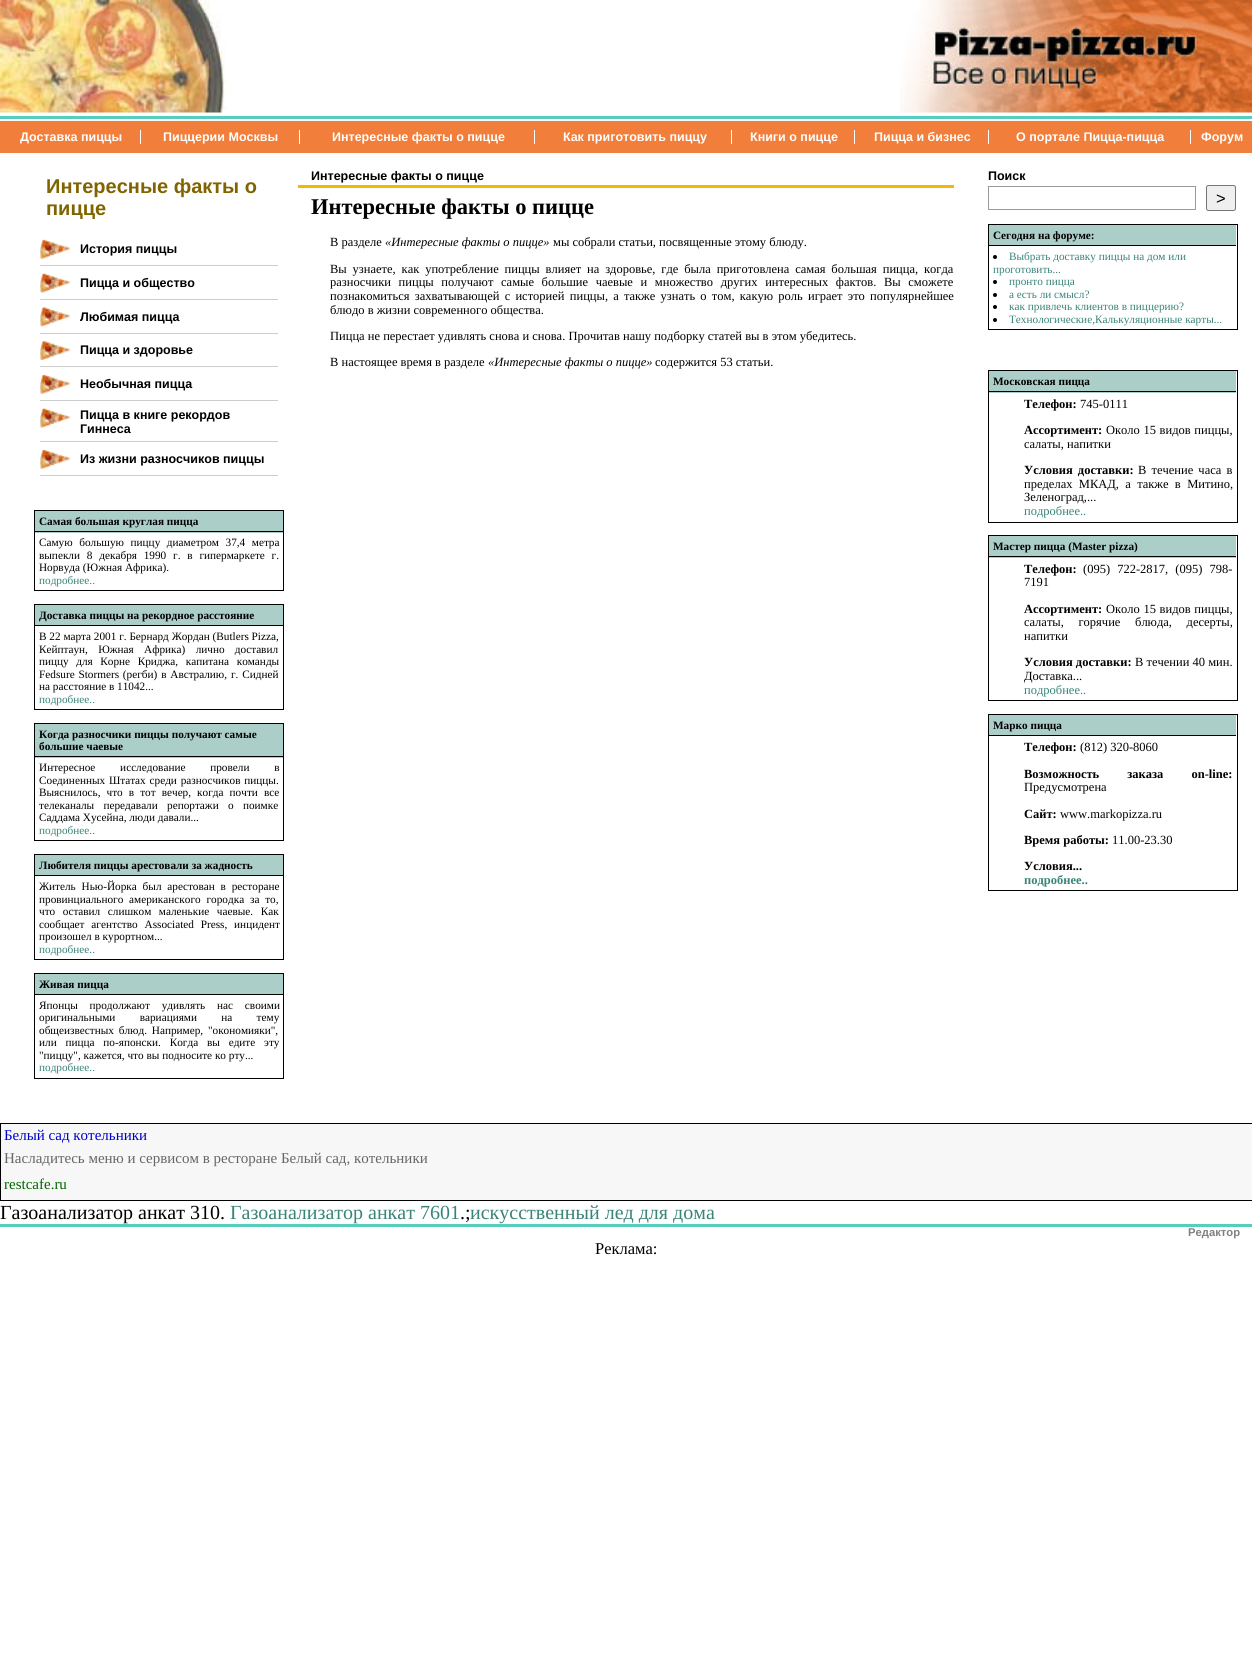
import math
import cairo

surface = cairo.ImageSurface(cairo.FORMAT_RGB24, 1252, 1663)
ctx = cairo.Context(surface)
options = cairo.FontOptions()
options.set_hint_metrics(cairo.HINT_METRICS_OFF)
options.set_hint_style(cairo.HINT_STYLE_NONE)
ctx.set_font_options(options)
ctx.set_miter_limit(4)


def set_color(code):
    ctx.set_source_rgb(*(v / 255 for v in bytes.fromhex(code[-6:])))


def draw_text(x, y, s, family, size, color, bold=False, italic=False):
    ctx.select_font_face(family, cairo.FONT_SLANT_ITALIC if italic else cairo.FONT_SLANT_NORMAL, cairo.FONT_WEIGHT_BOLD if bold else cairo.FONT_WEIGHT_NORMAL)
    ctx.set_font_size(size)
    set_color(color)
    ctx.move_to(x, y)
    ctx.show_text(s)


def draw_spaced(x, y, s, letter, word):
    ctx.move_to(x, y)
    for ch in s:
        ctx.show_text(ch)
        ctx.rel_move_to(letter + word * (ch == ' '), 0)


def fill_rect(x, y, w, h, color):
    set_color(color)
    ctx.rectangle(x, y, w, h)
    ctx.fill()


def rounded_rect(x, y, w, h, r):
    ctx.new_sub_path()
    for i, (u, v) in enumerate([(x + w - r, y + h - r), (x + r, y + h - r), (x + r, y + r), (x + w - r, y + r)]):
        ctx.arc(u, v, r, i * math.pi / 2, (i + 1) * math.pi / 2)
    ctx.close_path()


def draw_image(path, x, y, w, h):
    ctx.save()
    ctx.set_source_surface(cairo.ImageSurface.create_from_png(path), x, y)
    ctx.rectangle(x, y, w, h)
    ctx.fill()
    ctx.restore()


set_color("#ffffff")
ctx.paint()
draw_image("assets/img1.png", 0, 0, 226, 113)
draw_image("assets/img2.png", 900, 0, 352, 113)
fill_rect(0, 116, 1252, 3, "#57cebd")
fill_rect(0, 121, 1252, 32, "#f17e3a")
fill_rect(140, 130, 1, 14, "#ffffff")
draw_text(20, 141, "Доставка пиццы", "Liberation Sans", 12.5, "#ffffff", bold=True)
fill_rect(299, 130, 1, 14, "#ffffff")
draw_text(163, 141, "Пиццерии Москвы", "Liberation Sans", 12.5, "#ffffff", bold=True)
fill_rect(534, 130, 1, 14, "#ffffff")
draw_text(332, 141, "Интересные факты о пицце", "Liberation Sans", 12.5, "#ffffff", bold=True)
fill_rect(731, 130, 1, 14, "#ffffff")
draw_text(563, 141, "Как приготовить пиццу", "Liberation Sans", 12.5, "#ffffff", bold=True)
fill_rect(854, 130, 1, 14, "#ffffff")
draw_text(750, 141, "Книги о пицце", "Liberation Sans", 12.5, "#ffffff", bold=True)
fill_rect(988, 130, 1, 14, "#ffffff")
draw_text(874, 141, "Пицца и бизнес", "Liberation Sans", 12.5, "#ffffff", bold=True)
fill_rect(1190, 130, 1, 14, "#ffffff")
draw_text(1016, 141, "О портале Пицца-пицца", "Liberation Sans", 12.5, "#ffffff", bold=True)
draw_text(1201, 141, "Форум", "Liberation Sans", 12.5, "#ffffff", bold=True)
draw_text(46, 193, "Интересные факты о", "Liberation Sans", 20, "#806400", bold=True)
draw_text(46, 215, "пицце", "Liberation Sans", 20, "#806400", bold=True)
draw_image("assets/img3.png", 40, 239, 31, 20)
draw_text(80, 253, "История пиццы", "Liberation Sans", 12.5, "#000000", bold=True)
fill_rect(40, 265, 238, 1, "#cdcdcd")
draw_image("assets/img4.png", 40, 273, 31, 20)
draw_text(80, 287, "Пицца и общество", "Liberation Sans", 12.5, "#000000", bold=True)
fill_rect(40, 299, 238, 1, "#cdcdcd")
draw_image("assets/img5.png", 40, 307, 31, 20)
draw_text(80, 321, "Любимая пицца", "Liberation Sans", 12.5, "#000000", bold=True)
fill_rect(40, 333, 238, 1, "#cdcdcd")
draw_image("assets/img6.png", 40, 341, 31, 19)
draw_text(80, 354, "Пицца и здоровье", "Liberation Sans", 12.5, "#000000", bold=True)
fill_rect(40, 366, 238, 1, "#cdcdcd")
draw_image("assets/img3.png", 40, 374, 31, 20)
draw_text(80, 388, "Необычная пицца", "Liberation Sans", 12.5, "#000000", bold=True)
fill_rect(40, 400, 238, 1, "#cdcdcd")
draw_image("assets/img4.png", 40, 408, 31, 20)
draw_text(80, 419, "Пицца в книге рекордов", "Liberation Sans", 12.5, "#000000", bold=True)
draw_text(80, 433, "Гиннеса", "Liberation Sans", 12.5, "#000000", bold=True)
fill_rect(40, 441, 238, 1, "#cdcdcd")
draw_image("assets/img3.png", 40, 449, 31, 20)
draw_text(80, 463, "Из жизни разносчиков пиццы", "Liberation Sans", 12.5, "#000000", bold=True)
fill_rect(40, 475, 238, 1, "#cdcdcd")
ctx.rectangle(34.5, 510.5, 249, 80)
set_color("#000000")
ctx.set_line_width(1)
ctx.stroke()
fill_rect(35, 511, 248, 22, "#accec9")
fill_rect(35, 531, 248, 1, "#000000")
draw_text(39, 525, "Самая большая круглая пицца", "Liberation Serif", 11.25, "#000000", bold=True)
ctx.select_font_face("Liberation Serif")
draw_spaced(39, 546, "Самую большую пиццу диаметром 37,4 метра", 0, 3.75)
draw_spaced(39, 559, "выпекли 8 декабря 1990 г. в гипермаркете г.", 0, 4)
draw_text(39, 571, "Норвуда (Южная Африка).", "Liberation Serif", 11.25, "#000000")
draw_text(39, 584, "подробнее..", "Liberation Serif", 11.25, "#388479")
ctx.rectangle(34.5, 604.5, 249, 105)
set_color("#000000")
ctx.stroke()
fill_rect(35, 605, 248, 20, "#accec9")
fill_rect(35, 625, 248, 1, "#000000")
draw_text(39, 619, "Доставка пиццы на рекордное расстояние", "Liberation Serif", 11.25, "#000000", bold=True)
draw_text(39, 640, "В 22 марта 2001 г. Бернард Жордан (Butlers Pizza,", "Liberation Serif", 11.25, "#000000")
draw_spaced(39, 653, "Кейптаун, Южная Африка) лично доставил", 0, 7.5)
draw_spaced(39, 665, "пиццу для Корне Криджа, капитана команды", 0, 4.75)
draw_spaced(39, 678, "Fedsure Stormers (регби) в Австралию, г. Сидней", 0, 1)
draw_text(39, 690, "на расстояние в 11042...", "Liberation Serif", 11.25, "#000000")
draw_text(39, 703, "подробнее..", "Liberation Serif", 11.25, "#388479")
ctx.rectangle(34.5, 723.5, 249, 117)
set_color("#000000")
ctx.stroke()
fill_rect(35, 724, 248, 34, "#accec9")
fill_rect(35, 756, 248, 1, "#000000")
draw_text(39, 738, "Когда разносчики пиццы получают самые", "Liberation Serif", 11.25, "#000000", bold=True)
draw_text(39, 750, "большие чаевые", "Liberation Serif", 11.25, "#000000", bold=True)
ctx.select_font_face("Liberation Serif")
draw_spaced(39, 771, "Интересное исследование провели в", 0, 22)
draw_spaced(39, 784, "Соединенных Штатах среди разносчиков пиццы.", 0, 1)
draw_spaced(39, 796, "Выяснилось, что в тот вечер, когда почти все", 0, 3.25)
draw_spaced(39, 809, "телеканалы передавали репортажи о поимке", 0, 6.5)
draw_text(39, 821, "Саддама Хусейна, люди давали...", "Liberation Serif", 11.25, "#000000")
draw_text(39, 834, "подробнее..", "Liberation Serif", 11.25, "#388479")
ctx.rectangle(34.5, 854.5, 249, 105)
set_color("#000000")
ctx.stroke()
fill_rect(35, 855, 248, 20, "#accec9")
fill_rect(35, 875, 248, 1, "#000000")
draw_text(39, 869, "Любителя пиццы арестовали за жадность", "Liberation Serif", 11.25, "#000000", bold=True)
ctx.select_font_face("Liberation Serif")
draw_spaced(39, 890, "Житель Нью-Йорка был арестован в ресторане", 0, 3)
draw_spaced(39, 903, "провинциального американского городка за то,", 0, 3)
draw_spaced(39, 915, "что оставил слишком маленькие чаевые. Как", 0, 4.75)
draw_spaced(39, 928, "сообщает агентство Associated Press, инцидент", 0, 4)
draw_text(39, 940, "произошел в курортном...", "Liberation Serif", 11.25, "#000000")
draw_text(39, 953, "подробнее..", "Liberation Serif", 11.25, "#388479")
ctx.rectangle(34.5, 973.5, 249, 105)
set_color("#000000")
ctx.stroke()
fill_rect(35, 974, 248, 20, "#accec9")
fill_rect(35, 994, 248, 1, "#000000")
draw_text(39, 988, "Живая пицца", "Liberation Serif", 11.25, "#000000", bold=True)
ctx.select_font_face("Liberation Serif")
draw_spaced(39, 1009, "Японцы продолжают удивлять нас своими", 0, 9)
draw_spaced(39, 1021, "оригинальными вариациями на тему", 0, 21.5)
draw_spaced(39, 1034, "общеизвестных блюд. Например, \"окономияки\",", 0, 2)
draw_spaced(39, 1046, "или пицца по-японски. Когда вы едите эту", 0, 6)
draw_text(39, 1059, "\"пиццу\", кажется, что вы подносите ко рту...", "Liberation Serif", 11.25, "#000000")
draw_text(39, 1071, "подробнее..", "Liberation Serif", 11.25, "#388479")
draw_text(311, 180, "Интересные факты о пицце", "Liberation Sans", 12.5, "#000000", bold=True)
fill_rect(298, 185, 656, 3, "#efba00")
draw_text(311, 214, "Интересные факты о пицце", "Liberation Serif", 22.5, "#000000", bold=True)
draw_text(330, 246, "В разделе", "Liberation Serif", 12.5, "#000000")
draw_text(385, 246, "«Интересные факты о пицце»", "Liberation Serif", 12.5, "#000000", italic=True)
draw_text(553, 246, "мы собрали статьи, посвященные этому блюду.", "Liberation Serif", 12.5, "#000000")
draw_spaced(330, 273, "Вы узнаете, как употребление пиццы влияет на здоровье, где была приготовлена самая большая пицца, когда", 0, 2.75)
draw_spaced(330, 286, "разносчики пиццы получают самые большие чаевые и множество других интересных фактов. Вы сможете", 0, 4.5)
draw_spaced(330, 300, "познакомиться захватывающей с историей пиццы, а также узнать о том, какую роль играет это популярнейшее", 0, 2.1)
draw_text(330, 314, "блюдо в жизни современного общества.", "Liberation Serif", 12.5, "#000000")
draw_text(330, 340, "Пицца не перестает удивлять снова и снова. Прочитав нашу подборку статей вы в этом убедитесь.", "Liberation Serif", 12.5, "#000000")
draw_text(330, 366, "В настоящее время в разделе", "Liberation Serif", 12.5, "#000000")
draw_text(488, 366, "«Интересные факты о пицце»", "Liberation Serif", 12.5, "#000000", italic=True)
draw_text(655, 366, "содержится 53 статьи.", "Liberation Serif", 12.5, "#000000")
draw_text(988, 180, "Поиск", "Liberation Sans", 12.5, "#000000", bold=True)
ctx.rectangle(988.5, 186.5, 207, 23)
set_color("#9a9a9a")
ctx.stroke()
set_color("#efefef")
rounded_rect(1206.5, 185.5, 29, 25, 2)
ctx.fill_preserve()
set_color("#767676")
ctx.stroke()
draw_text(1216, 204, ">", "Liberation Sans", 16.5, "#000000")
ctx.rectangle(988.5, 224.5, 249, 105)
ctx.stroke()
fill_rect(989, 225, 247, 20, "#accec9")
fill_rect(989, 245, 247, 1, "#000000")
draw_text(993, 239, "Сегодня на форуме:", "Liberation Serif", 11.25, "#000000", bold=True)
ctx.new_path()
ctx.arc(995, 257, 2, 0, 2 * math.pi)
ctx.fill()
draw_text(1009, 260, "Выбрать доставку пиццы на дом или", "Liberation Serif", 11.25, "#388479")
draw_text(993, 273, "проготовить...", "Liberation Serif", 11.25, "#388479")
set_color("#000000")
ctx.new_path()
ctx.arc(995, 282, 2, 0, 2 * math.pi)
ctx.fill()
draw_text(1009, 285, "пронто пицца", "Liberation Serif", 11.25, "#388479")
set_color("#000000")
ctx.new_path()
ctx.arc(995, 295, 2, 0, 2 * math.pi)
ctx.fill()
draw_text(1009, 298, "а есть ли смысл?", "Liberation Serif", 11.25, "#388479")
set_color("#000000")
ctx.new_path()
ctx.arc(995, 307, 2, 0, 2 * math.pi)
ctx.fill()
draw_text(1009, 310, "как привлечь клиентов в пиццерию?", "Liberation Serif", 11.25, "#388479")
set_color("#000000")
ctx.new_path()
ctx.arc(995, 320, 2, 0, 2 * math.pi)
ctx.fill()
draw_text(1009, 323, "Технологические,Калькуляционные карты...", "Liberation Serif", 11.25, "#388479")
ctx.rectangle(988.5, 370.5, 249, 152)
set_color("#000000")
ctx.stroke()
fill_rect(989, 371, 247, 22, "#accec9")
fill_rect(989, 391, 247, 1, "#000000")
draw_text(993, 385, "Московская пицца", "Liberation Serif", 11.25, "#000000", bold=True)
draw_text(1024, 408, "Телефон:", "Liberation Serif", 12.5, "#000000", bold=True)
draw_text(1080, 408, "745-0111", "Liberation Serif", 12.5, "#000000")
draw_text(1024, 434, "Ассортимент:", "Liberation Serif", 12.5, "#000000", bold=True)
ctx.select_font_face("Liberation Serif")
draw_spaced(1106, 434, "Около 15 видов пиццы,", 0, 0.5)
draw_text(1024, 448, "салаты, напитки", "Liberation Serif", 12.5, "#000000")
ctx.select_font_face("Liberation Serif", cairo.FONT_SLANT_NORMAL, cairo.FONT_WEIGHT_BOLD)
draw_spaced(1024, 474, "Условия доставки:", 0, 2)
ctx.select_font_face("Liberation Serif")
draw_spaced(1138, 474, "В течение часа в", 0, 2)
draw_spaced(1024, 488, "пределах МКАД, а также в Митино,", 0, 3.25)
draw_text(1024, 501, "Зеленоград,...", "Liberation Serif", 12.5, "#000000")
draw_text(1024, 515, "подробнее..", "Liberation Serif", 12.5, "#388479")
ctx.rectangle(988.5, 535.5, 249, 165)
set_color("#000000")
ctx.stroke()
fill_rect(989, 536, 247, 22, "#accec9")
fill_rect(989, 556, 247, 1, "#000000")
draw_text(993, 550, "Мастер пицца (Master pizza)", "Liberation Serif", 11.25, "#000000", bold=True)
draw_text(1024, 573, "Телефон:", "Liberation Serif", 12.5, "#000000", bold=True)
ctx.select_font_face("Liberation Serif")
draw_spaced(1083, 573, "(095) 722-2817, (095) 798-", 0, 4)
draw_text(1024, 586, "7191", "Liberation Serif", 12.5, "#000000")
draw_text(1024, 613, "Ассортимент:", "Liberation Serif", 12.5, "#000000", bold=True)
ctx.select_font_face("Liberation Serif")
draw_spaced(1106, 613, "Около 15 видов пиццы,", 0, 0.5)
draw_spaced(1024, 626, "салаты, горячие блюда, десерты,", 0, 11.5)
draw_text(1024, 640, "напитки", "Liberation Serif", 12.5, "#000000")
draw_text(1024, 666, "Условия доставки:", "Liberation Serif", 12.5, "#000000", bold=True)
draw_text(1135, 666, "В течении 40 мин.", "Liberation Serif", 12.5, "#000000")
draw_text(1024, 680, "Доставка...", "Liberation Serif", 12.5, "#000000")
draw_text(1024, 694, "подробнее..", "Liberation Serif", 12.5, "#388479")
ctx.rectangle(988.5, 714.5, 249, 176)
set_color("#000000")
ctx.stroke()
fill_rect(989, 715, 247, 20, "#accec9")
fill_rect(989, 735, 247, 1, "#000000")
draw_text(993, 729, "Марко пицца", "Liberation Serif", 11.25, "#000000", bold=True)
draw_text(1024, 751, "Телефон:", "Liberation Serif", 12.5, "#000000", bold=True)
draw_text(1080, 751, "(812) 320-8060", "Liberation Serif", 12.5, "#000000")
ctx.select_font_face("Liberation Serif", cairo.FONT_SLANT_NORMAL, cairo.FONT_WEIGHT_BOLD)
draw_spaced(1024, 778, "Возможность заказа on-line:", 0, 25)
draw_text(1024, 791, "Предусмотрена", "Liberation Serif", 12.5, "#000000")
draw_text(1024, 818, "Сайт:", "Liberation Serif", 12.5, "#000000", bold=True)
draw_text(1060, 818, "www.markopizza.ru", "Liberation Serif", 12.5, "#000000")
draw_text(1024, 844, "Время pаботы:", "Liberation Serif", 12.5, "#000000", bold=True)
draw_text(1112, 844, "11.00-23.30", "Liberation Serif", 12.5, "#000000")
draw_text(1024, 870, "Условия...", "Liberation Serif", 12.5, "#000000", bold=True)
draw_text(1024, 884, "подробнее..", "Liberation Serif", 12.5, "#388479", bold=True)
set_color("#f7f7f7")
ctx.rectangle(0.5, 1123.5, 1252, 77)
ctx.fill_preserve()
set_color("#000000")
ctx.stroke()
draw_text(4, 1140, "Белый сад котельники", "Liberation Serif", 15, "#0000cc")
draw_text(4, 1163, "Насладитесь меню и сервисом в ресторане Белый сад, котельники", "Liberation Serif", 15, "#666666")
draw_text(4, 1189, "restcafe.ru", "Liberation Serif", 15, "#006600")
draw_text(0, 1219, "Газоанализатор анкат 310.", "Liberation Serif", 20, "#000000")
draw_text(230, 1219, "Газоанализатор анкат 7601", "Liberation Serif", 20, "#388479")
draw_text(460, 1219, ".;", "Liberation Serif", 20, "#000000")
draw_text(470, 1219, "искусственный лед для дома", "Liberation Serif", 20, "#388479")
fill_rect(0, 1224, 1252, 3, "#57cebd")
draw_text(1188, 1236, "Редактор", "Liberation Sans", 11.25, "#808080", bold=True)
draw_text(595, 1254, "Реклама:", "Liberation Serif", 16.5, "#000000")
surface.write_to_png("output.png")
